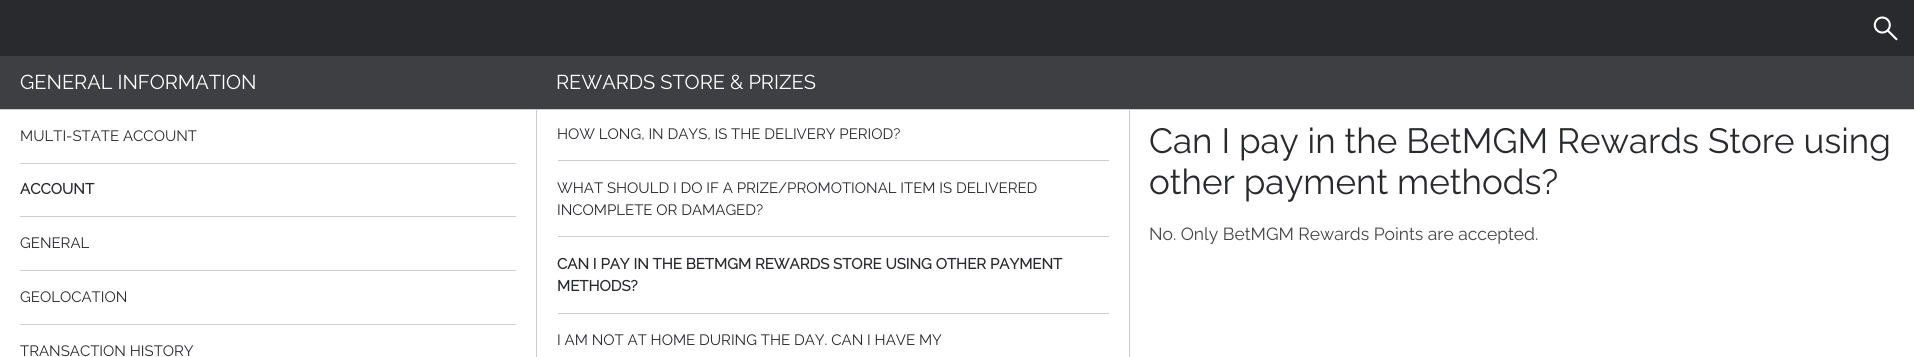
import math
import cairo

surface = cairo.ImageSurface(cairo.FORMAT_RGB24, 1914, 357)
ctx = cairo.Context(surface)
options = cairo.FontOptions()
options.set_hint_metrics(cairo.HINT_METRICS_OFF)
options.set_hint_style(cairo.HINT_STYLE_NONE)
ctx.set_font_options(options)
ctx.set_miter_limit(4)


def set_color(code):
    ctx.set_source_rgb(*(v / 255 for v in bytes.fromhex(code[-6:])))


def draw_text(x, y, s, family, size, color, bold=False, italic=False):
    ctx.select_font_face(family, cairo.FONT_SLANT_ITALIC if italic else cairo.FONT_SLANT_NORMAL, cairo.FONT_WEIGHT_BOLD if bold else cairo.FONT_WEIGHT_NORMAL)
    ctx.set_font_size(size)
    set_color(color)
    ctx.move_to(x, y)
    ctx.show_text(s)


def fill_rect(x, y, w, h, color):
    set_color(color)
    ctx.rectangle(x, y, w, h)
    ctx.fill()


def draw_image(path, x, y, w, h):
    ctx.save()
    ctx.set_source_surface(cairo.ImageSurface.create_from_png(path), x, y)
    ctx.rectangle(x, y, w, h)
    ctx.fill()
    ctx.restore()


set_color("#ffffff")
ctx.paint()
fill_rect(0, 0, 1914, 56, "#292a2e")
draw_image("assets/img1.png", 1873, 16, 25, 25)
fill_rect(1129, 108, 1, 249, "#cacbd3")
fill_rect(0, 56, 1914, 53, "#3e3f42")
fill_rect(0, 109, 1914, 1, "#cacbd3")
draw_text(20, 89, "GENERAL INFORMATION", "Raleway Thin", 20, "#ffffff")
fill_rect(20, 163, 496, 1, "#cacbd3")
draw_text(20, 141, "MULTI-STATE ACCOUNT", "Raleway Thin", 15, "#292a2e")
draw_text(20, 194, "ACCOUNT", "Raleway", 15, "#292a2e", bold=True)
fill_rect(20, 216, 496, 1, "#cacbd3")
fill_rect(20, 270, 496, 1, "#cacbd3")
draw_text(20, 248, "GENERAL", "Raleway Thin", 15, "#292a2e")
fill_rect(20, 324, 496, 1, "#cacbd3")
draw_text(20, 302, "GEOLOCATION", "Raleway Thin", 15, "#292a2e")
draw_text(20, 356, "TRANSACTION HISTORY", "Raleway Thin", 15, "#292a2e")
draw_text(556, 89, "REWARDS STORE & PRIZES", "Raleway Thin", 20, "#ffffff")
fill_rect(536, 110, 1, 247, "#cacbd3")
fill_rect(558, 160, 551, 1, "#cacbd3")
draw_text(557, 139, "HOW LONG, IN DAYS, IS THE DELIVERY PERIOD?", "Raleway Thin", 15, "#292a2e")
fill_rect(558, 236, 551, 1, "#cacbd3")
draw_text(557, 193, "WHAT SHOULD I DO IF A PRIZE/PROMOTIONAL ITEM IS DELIVERED", "Raleway Thin", 15, "#292a2e")
draw_text(557, 215, "INCOMPLETE OR DAMAGED?", "Raleway Thin", 15, "#292a2e")
fill_rect(558, 313, 551, 1, "#cacbd3")
draw_text(557, 269, "CAN I PAY IN THE BETMGM REWARDS STORE USING OTHER PAYMENT", "Raleway", 15, "#292a2e", bold=True)
draw_text(557, 291, "METHODS?", "Raleway", 15, "#292a2e", bold=True)
draw_text(557, 345, "I AM NOT AT HOME DURING THE DAY. CAN I HAVE MY", "Raleway Thin", 15, "#292a2e")
draw_text(1149, 153, "Can I pay in the BetMGM Rewards Store using", "Raleway Thin", 35, "#292a2e")
draw_text(1149, 194, "other payment methods?", "Raleway Thin", 35, "#292a2e")
draw_text(1149, 240, "No. Only BetMGM Rewards Points are accepted.", "Raleway Thin", 17.5, "#444444")
surface.write_to_png("output.png")
